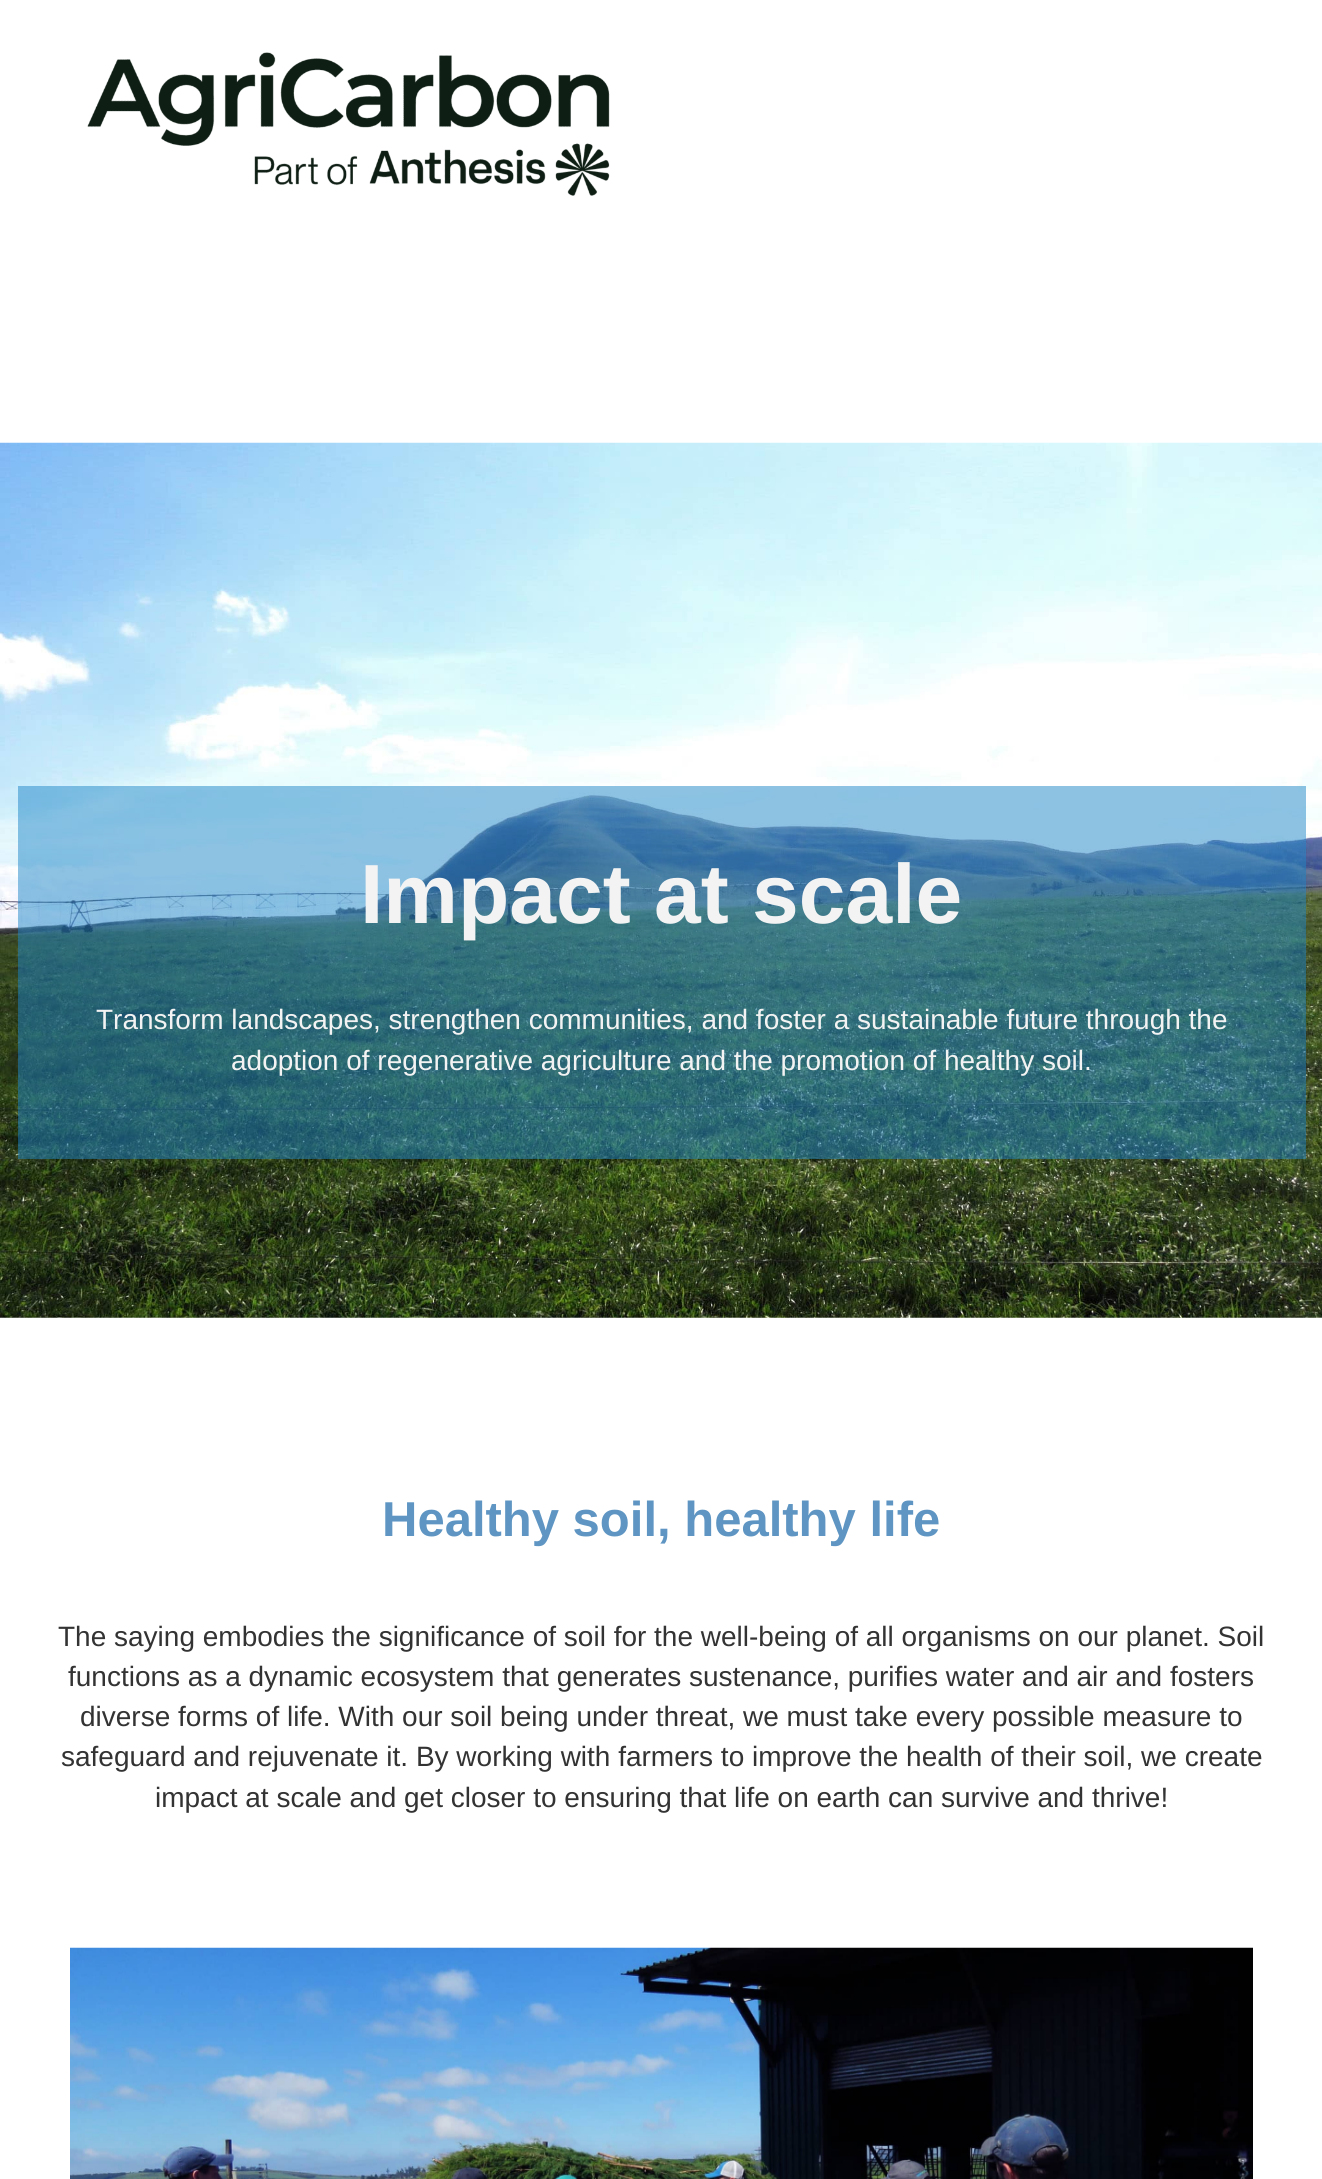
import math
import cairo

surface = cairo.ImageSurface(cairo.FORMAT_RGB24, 1322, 2179)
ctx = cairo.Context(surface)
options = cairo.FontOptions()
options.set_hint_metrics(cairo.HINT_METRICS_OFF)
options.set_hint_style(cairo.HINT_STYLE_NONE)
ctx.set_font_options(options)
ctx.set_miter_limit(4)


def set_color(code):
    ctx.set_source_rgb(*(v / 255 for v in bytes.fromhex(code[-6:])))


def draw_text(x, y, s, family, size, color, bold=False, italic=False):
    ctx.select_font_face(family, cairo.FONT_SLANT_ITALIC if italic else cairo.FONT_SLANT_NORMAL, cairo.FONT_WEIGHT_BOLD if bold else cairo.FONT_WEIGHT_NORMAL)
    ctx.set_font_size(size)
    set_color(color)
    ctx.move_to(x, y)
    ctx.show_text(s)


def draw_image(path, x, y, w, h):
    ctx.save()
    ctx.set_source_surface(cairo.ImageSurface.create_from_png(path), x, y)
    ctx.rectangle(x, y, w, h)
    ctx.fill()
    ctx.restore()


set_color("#ffffff")
ctx.paint()
draw_image("assets/img1.png", 87, 52, 523, 144)
draw_image("assets/img2.png", 0, 442, 1322, 876)
ctx.set_source_rgba(0.122, 0.525, 0.788, 0.5)
ctx.rectangle(18, 786, 1288, 373)
ctx.fill()
draw_text(360, 923, "Impact at scale", "Liberation Sans", 84, "#f3f3f3", bold=True)
draw_text(96, 1029, "Transform landscapes, strengthen communities, and foster a sustainable future through the", "Liberation Sans", 28, "#f3f3f3")
draw_text(231, 1070, "adoption of regenerative agriculture and the promotion of healthy soil.", "Liberation Sans", 28, "#f3f3f3")
draw_text(382, 1536, "Healthy soil, healthy life", "Liberation Sans", 49, "#5e95c2", bold=True)
draw_text(58, 1646, "The saying embodies the significance of soil for the well-being of all organisms on our planet. Soil", "Liberation Sans", 28, "#333333")
draw_text(68, 1686, "functions as a dynamic ecosystem that generates sustenance, purifies water and air and fosters", "Liberation Sans", 28, "#333333")
draw_text(80, 1726, "diverse forms of life. With our soil being under threat, we must take every possible measure to", "Liberation Sans", 28, "#333333")
draw_text(61, 1766, "safeguard and rejuvenate it. By working with farmers to improve the health of their soil, we create", "Liberation Sans", 28, "#333333")
draw_text(155, 1807, "impact at scale and get closer to ensuring that life on earth can survive and thrive!", "Liberation Sans", 28, "#333333")
draw_image("assets/img3.png", 70, 1947, 1183, 232)
surface.write_to_png("output.png")
